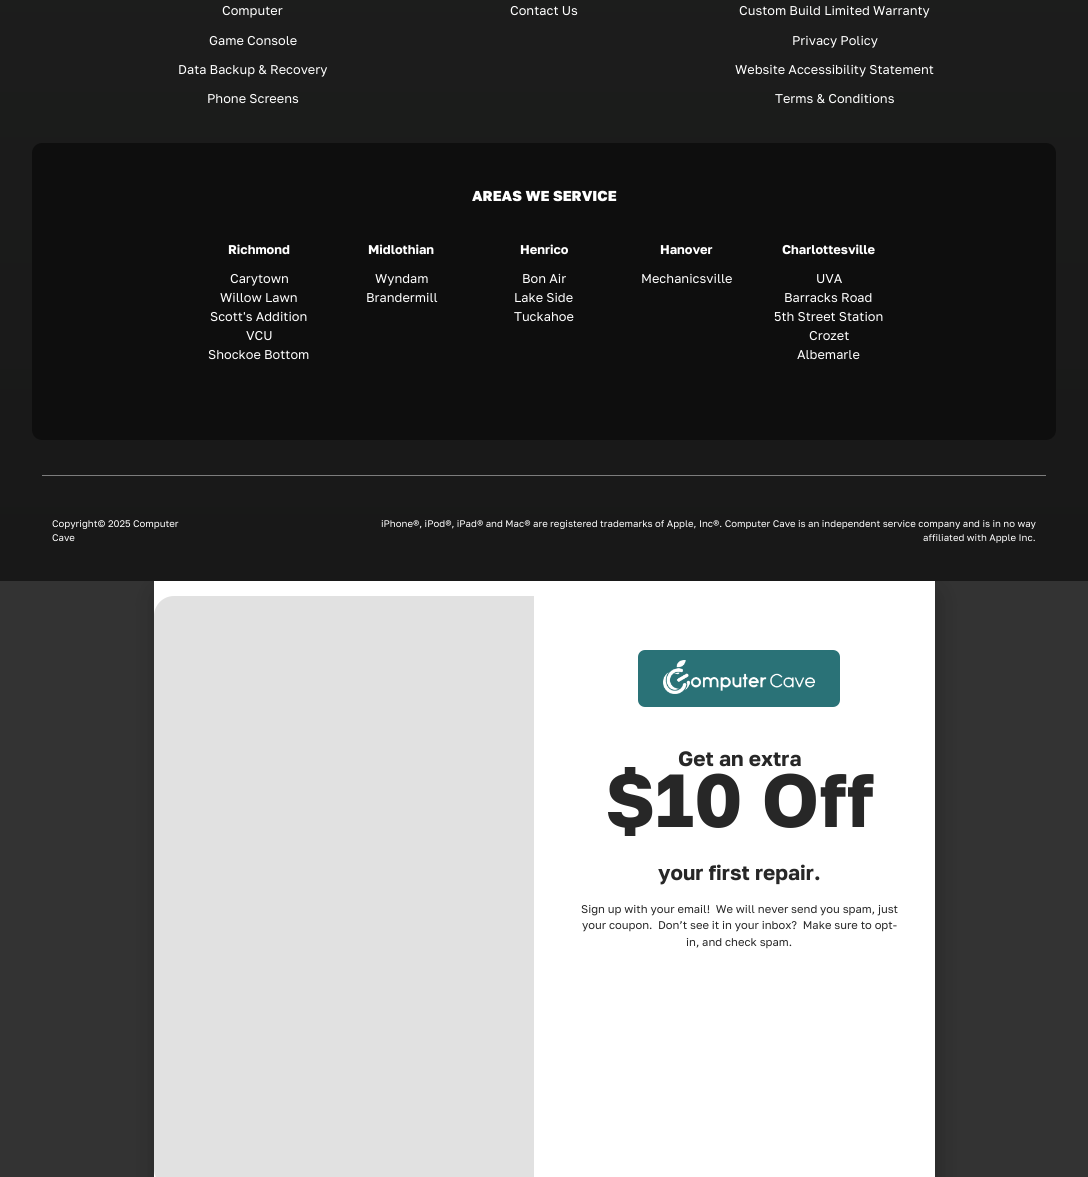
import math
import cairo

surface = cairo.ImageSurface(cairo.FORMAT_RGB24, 1088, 1177)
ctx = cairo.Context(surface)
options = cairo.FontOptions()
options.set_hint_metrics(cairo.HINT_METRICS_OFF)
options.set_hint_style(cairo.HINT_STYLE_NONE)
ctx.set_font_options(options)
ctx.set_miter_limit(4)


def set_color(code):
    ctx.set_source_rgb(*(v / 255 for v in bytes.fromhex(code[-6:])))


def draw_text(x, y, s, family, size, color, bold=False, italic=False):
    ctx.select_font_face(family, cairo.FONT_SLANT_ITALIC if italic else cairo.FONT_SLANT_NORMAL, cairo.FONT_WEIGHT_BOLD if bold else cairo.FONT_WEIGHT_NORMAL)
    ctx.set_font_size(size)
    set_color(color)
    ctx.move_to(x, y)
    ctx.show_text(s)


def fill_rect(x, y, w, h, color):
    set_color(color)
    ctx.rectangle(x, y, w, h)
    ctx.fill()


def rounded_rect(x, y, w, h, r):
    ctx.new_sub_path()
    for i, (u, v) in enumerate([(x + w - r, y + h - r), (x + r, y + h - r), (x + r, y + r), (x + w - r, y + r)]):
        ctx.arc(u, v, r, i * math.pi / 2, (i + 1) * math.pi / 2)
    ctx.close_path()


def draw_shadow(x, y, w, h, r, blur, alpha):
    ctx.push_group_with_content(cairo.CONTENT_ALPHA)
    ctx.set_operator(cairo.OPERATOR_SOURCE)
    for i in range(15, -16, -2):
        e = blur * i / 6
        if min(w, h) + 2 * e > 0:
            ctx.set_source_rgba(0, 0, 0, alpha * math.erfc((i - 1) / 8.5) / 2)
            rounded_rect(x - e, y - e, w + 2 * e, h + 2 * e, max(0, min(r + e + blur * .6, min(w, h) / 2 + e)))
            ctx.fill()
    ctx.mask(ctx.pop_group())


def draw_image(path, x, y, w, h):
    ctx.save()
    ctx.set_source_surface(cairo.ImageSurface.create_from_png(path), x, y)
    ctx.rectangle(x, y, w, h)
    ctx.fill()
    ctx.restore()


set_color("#333333")
ctx.paint()
set_color("#000000")
draw_shadow(153, 586, 787, 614, 13, 11.5, 0.2)
gradient = cairo.LinearGradient(544, -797, 544, 581)
gradient.add_color_stop_rgba(0, 0.133, 0.137, 0.133, 1)
gradient.add_color_stop_rgba(1, 0.094, 0.094, 0.094, 1)
ctx.set_source(gradient)
ctx.rectangle(0, 0, 1088, 581)
ctx.fill()
draw_text(222, 15, "Computer", "Golos Text", 12.75, "#ffffff")
draw_text(209, 45, "Game Console", "Golos Text", 12.75, "#ffffff")
draw_text(178, 74, "Data Backup & Recovery", "Golos Text", 12.75, "#ffffff")
draw_text(207, 103, "Phone Screens", "Golos Text", 12.75, "#ffffff")
draw_text(510, 15, "Contact Us", "Golos Text", 12.75, "#ffffff")
draw_text(739, 15, "Custom Build Limited Warranty", "Golos Text", 12.75, "#ffffff")
draw_text(792, 45, "Privacy Policy", "Golos Text", 12.75, "#ffffff")
draw_text(735, 74, "Website Accessibility Statement", "Golos Text", 12.75, "#ffffff")
draw_text(775, 103, "Terms & Conditions", "Golos Text", 12.75, "#ffffff")
set_color("#0e0e0e")
rounded_rect(32, 143, 1024, 297, 10)
ctx.fill()
draw_text(472, 201, "AREAS WE SERVICE", "Golos Text ExtraBold", 14.4, "#ffffff")
draw_text(228, 254, "Richmond", "Golos Text", 12.75, "#ffffff", bold=True)
draw_text(230, 283, "Carytown", "Golos Text", 12.75, "#ffffff")
draw_text(220, 302, "Willow Lawn", "Golos Text", 12.75, "#ffffff")
draw_text(210, 321, "Scott's Addition", "Golos Text", 12.75, "#ffffff")
draw_text(246, 340, "VCU", "Golos Text", 12.75, "#ffffff")
draw_text(208, 359, "Shockoe Bottom", "Golos Text", 12.75, "#ffffff")
draw_text(368, 254, "Midlothian", "Golos Text", 12.75, "#ffffff", bold=True)
draw_text(375, 283, "Wyndam", "Golos Text", 12.75, "#ffffff")
draw_text(366, 302, "Brandermill", "Golos Text", 12.75, "#ffffff")
draw_text(520, 254, "Henrico", "Golos Text", 12.75, "#ffffff", bold=True)
draw_text(522, 283, "Bon Air", "Golos Text", 12.75, "#ffffff")
draw_text(514, 302, "Lake Side", "Golos Text", 12.75, "#ffffff")
draw_text(514, 321, "Tuckahoe", "Golos Text", 12.75, "#ffffff")
draw_text(660, 254, "Hanover", "Golos Text", 12.75, "#ffffff", bold=True)
draw_text(641, 283, "Mechanicsville", "Golos Text", 12.75, "#ffffff")
draw_text(782, 254, "Charlottesville", "Golos Text", 12.75, "#ffffff", bold=True)
draw_text(816, 283, "UVA", "Golos Text", 12.75, "#ffffff")
draw_text(784, 302, "Barracks Road", "Golos Text", 12.75, "#ffffff")
draw_text(774, 321, "5th Street Station", "Golos Text", 12.75, "#ffffff")
draw_text(809, 340, "Crozet", "Golos Text", 12.75, "#ffffff")
draw_text(797, 359, "Albemarle", "Golos Text", 12.75, "#ffffff")
fill_rect(42, 475, 1004, 1, "#7d7d7d")
draw_text(52, 527, "Copyright© 2025 Computer", "Golos Text", 9.6, "#ffffff")
draw_text(52, 541, "Cave", "Golos Text", 9.6, "#ffffff")
draw_text(381, 527, "iPhone®, iPod®, iPad® and Mac® are registered trademarks of Apple, Inc®. Computer Cave is an independent service company and is in no way", "Golos Text", 9.6, "#ffffff")
draw_text(923, 541, "affiliated with Apple Inc.", "Golos Text", 9.6, "#ffffff")
fill_rect(154, 581, 781, 596, "#ffffff")
set_color("#e1e1e1")
ctx.new_path()
ctx.move_to(174, 596)
ctx.line_to(534, 596)
ctx.line_to(534, 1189)
ctx.line_to(174, 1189)
ctx.curve_to(163, 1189, 154, 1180, 154, 1169)
ctx.line_to(154, 616)
ctx.curve_to(154, 605, 163, 596, 174, 596)
ctx.close_path()
ctx.fill()
set_color("#2a7277")
rounded_rect(638, 650, 202, 57, 7)
ctx.fill()
draw_image("assets/img1.png", 663, 660, 152, 34)
draw_text(678, 766, "Get an extra", "Golos Text", 20.75, "#272727", bold=True)
draw_text(605, 827, "$10 Off", "Golos Text", 75, "#272727", bold=True)
draw_text(658, 880, "your first repair.", "Golos Text", 20.75, "#272727", bold=True)
draw_text(581, 913, "Sign up with your email!  We will never send you spam, just", "Golos Text", 11.2, "#272727")
draw_text(582, 929, "your coupon.  Don’t see it in your inbox?  Make sure to opt-", "Golos Text", 11.2, "#272727")
draw_text(686, 946, "in, and check spam.", "Golos Text", 11.2, "#272727")
surface.write_to_png("output.png")
